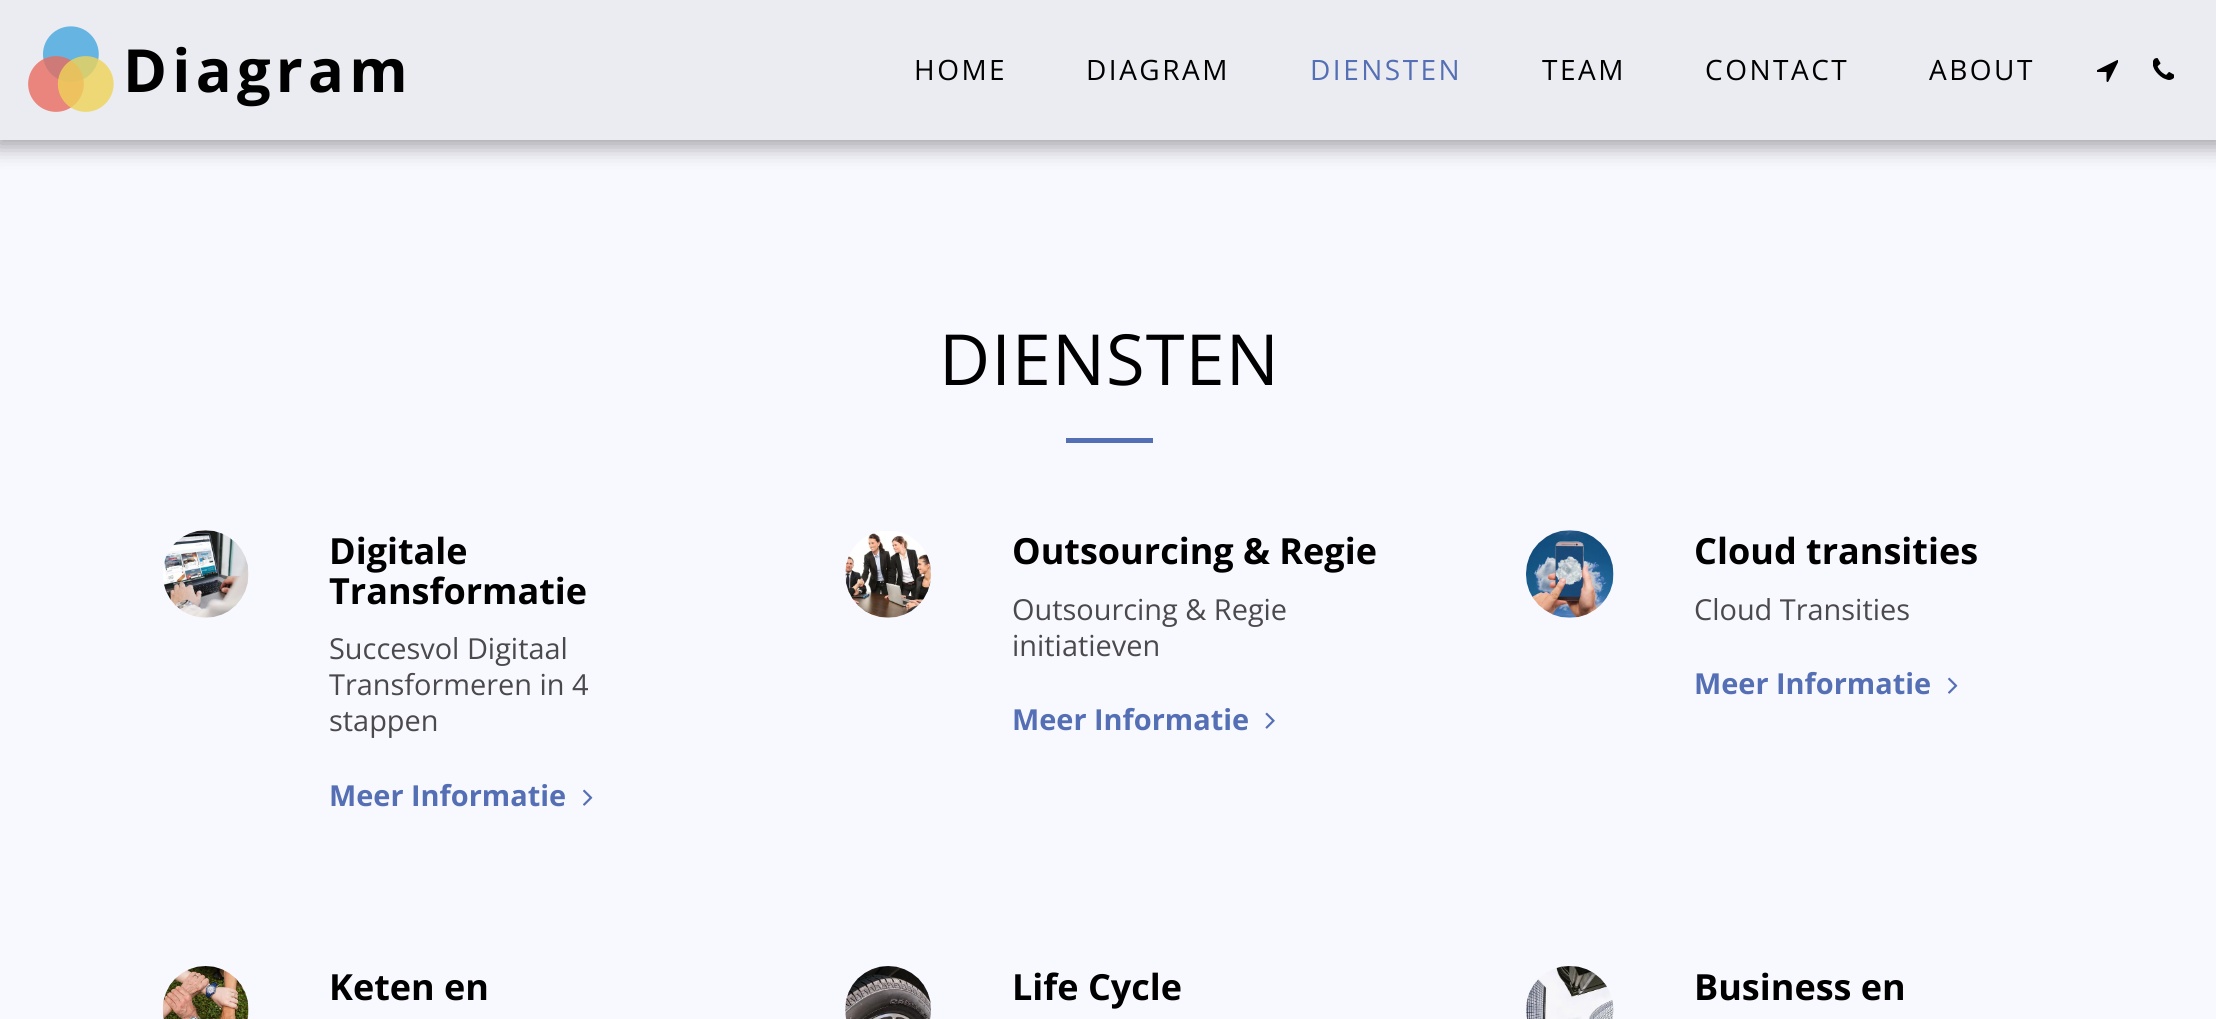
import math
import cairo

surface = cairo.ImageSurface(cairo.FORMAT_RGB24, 2216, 1019)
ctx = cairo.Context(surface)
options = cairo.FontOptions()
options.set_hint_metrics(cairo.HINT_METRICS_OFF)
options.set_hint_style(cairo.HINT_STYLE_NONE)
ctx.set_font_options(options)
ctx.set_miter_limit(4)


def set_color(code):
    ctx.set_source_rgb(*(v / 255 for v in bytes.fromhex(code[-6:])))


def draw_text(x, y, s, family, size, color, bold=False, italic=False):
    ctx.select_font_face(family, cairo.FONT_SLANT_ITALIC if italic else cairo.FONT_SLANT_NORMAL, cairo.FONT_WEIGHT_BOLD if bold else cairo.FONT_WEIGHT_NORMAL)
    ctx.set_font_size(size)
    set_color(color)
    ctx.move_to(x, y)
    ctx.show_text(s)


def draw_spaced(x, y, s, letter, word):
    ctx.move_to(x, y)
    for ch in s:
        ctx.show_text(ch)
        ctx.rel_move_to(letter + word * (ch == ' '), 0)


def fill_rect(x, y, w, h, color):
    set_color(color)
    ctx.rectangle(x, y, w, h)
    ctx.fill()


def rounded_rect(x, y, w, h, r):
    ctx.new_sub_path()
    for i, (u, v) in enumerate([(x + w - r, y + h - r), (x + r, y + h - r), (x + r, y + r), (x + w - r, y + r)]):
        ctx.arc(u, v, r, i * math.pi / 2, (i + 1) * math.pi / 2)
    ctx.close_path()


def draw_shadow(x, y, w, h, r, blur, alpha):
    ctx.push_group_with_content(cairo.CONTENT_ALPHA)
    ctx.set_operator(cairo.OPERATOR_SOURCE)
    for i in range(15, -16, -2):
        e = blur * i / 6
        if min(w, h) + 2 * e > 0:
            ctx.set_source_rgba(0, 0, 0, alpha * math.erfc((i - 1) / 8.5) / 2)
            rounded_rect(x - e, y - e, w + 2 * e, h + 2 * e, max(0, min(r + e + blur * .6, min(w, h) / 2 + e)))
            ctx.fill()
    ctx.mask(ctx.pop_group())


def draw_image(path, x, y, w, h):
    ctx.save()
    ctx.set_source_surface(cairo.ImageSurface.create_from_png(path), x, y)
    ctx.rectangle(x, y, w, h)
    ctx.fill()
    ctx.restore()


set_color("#f8f8ff")
ctx.paint()
set_color("#000000")
draw_shadow(-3, 0, 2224, 147, 0, 10.5, 0.35)
fill_rect(0, 0, 2216, 140, "#ebecf1")
draw_image("assets/img1.png", 28, 26, 86, 86)
ctx.select_font_face("Open Sans", cairo.FONT_SLANT_NORMAL, cairo.FONT_WEIGHT_BOLD)
ctx.set_font_size(59.5)
set_color("#000000")
draw_spaced(123, 92, "Diagram", 5.25, 0)
ctx.select_font_face("Open Sans")
ctx.set_font_size(28)
draw_spaced(914, 80, "HOME", 2.5, 0)
draw_spaced(1086, 80, "DIAGRAM", 2.5, 0)
set_color("#556fb5")
draw_spaced(1310, 80, "DIENSTEN", 2.5, 0)
set_color("#000000")
draw_spaced(1542, 80, "TEAM", 2.5, 0)
draw_spaced(1705, 80, "CONTACT", 2.5, 0)
draw_spaced(1929, 80, "ABOUT", 2.5, 0)
draw_image("assets/img2.png", 2097, 60, 21, 22)
draw_image("assets/img3.png", 2153, 58, 21, 22)
ctx.set_font_size(70.5)
draw_spaced(939, 385, "DIENSTEN", 1, 0)
fill_rect(1066, 438, 87, 5, "#556fb5")
draw_image("assets/img4.png", 163, 530, 86, 88)
draw_text(329, 564, "Digitale", "Open Sans", 36, "#000000", bold=True)
draw_text(329, 604, "Transformatie", "Open Sans", 36, "#000000", bold=True)
draw_text(329, 659, "Succesvol Digitaal", "Open Sans", 28.9, "#4a4a4d")
draw_text(329, 695, "Transformeren in 4", "Open Sans", 28.9, "#4a4a4d")
draw_text(329, 731, "stappen", "Open Sans", 28.9, "#4a4a4d")
draw_text(329, 806, "Meer Informatie", "Open Sans", 28.9, "#556fb5", bold=True)
draw_image("assets/img5.png", 583, 789, 10, 17)
draw_image("assets/img6.png", 845, 531, 86, 87)
draw_text(1012, 564, "Outsourcing & Regie", "Open Sans", 36, "#000000", bold=True)
draw_text(1012, 620, "Outsourcing & Regie", "Open Sans", 28.9, "#4a4a4d")
draw_text(1012, 656, "initiatieven", "Open Sans", 28.9, "#4a4a4d")
draw_text(1012, 730, "Meer Informatie", "Open Sans", 28.9, "#556fb5", bold=True)
draw_image("assets/img7.png", 1265, 712, 10, 17)
draw_image("assets/img8.png", 1526, 530, 88, 88)
draw_text(1694, 564, "Cloud transities", "Open Sans", 36, "#000000", bold=True)
draw_text(1694, 620, "Cloud Transities", "Open Sans", 28.9, "#4a4a4d")
draw_text(1694, 694, "Meer Informatie", "Open Sans", 28.9, "#556fb5", bold=True)
draw_image("assets/img5.png", 1948, 677, 10, 17)
draw_image("assets/img9.png", 162, 966, 87, 53)
draw_text(329, 1000, "Keten en", "Open Sans", 36, "#000000", bold=True)
draw_image("assets/img10.png", 845, 966, 86, 53)
draw_text(1012, 1000, "Life Cycle", "Open Sans", 36, "#000000", bold=True)
draw_image("assets/img11.png", 1526, 966, 88, 53)
draw_text(1694, 1000, "Business en", "Open Sans", 36, "#000000", bold=True)
surface.write_to_png("output.png")
